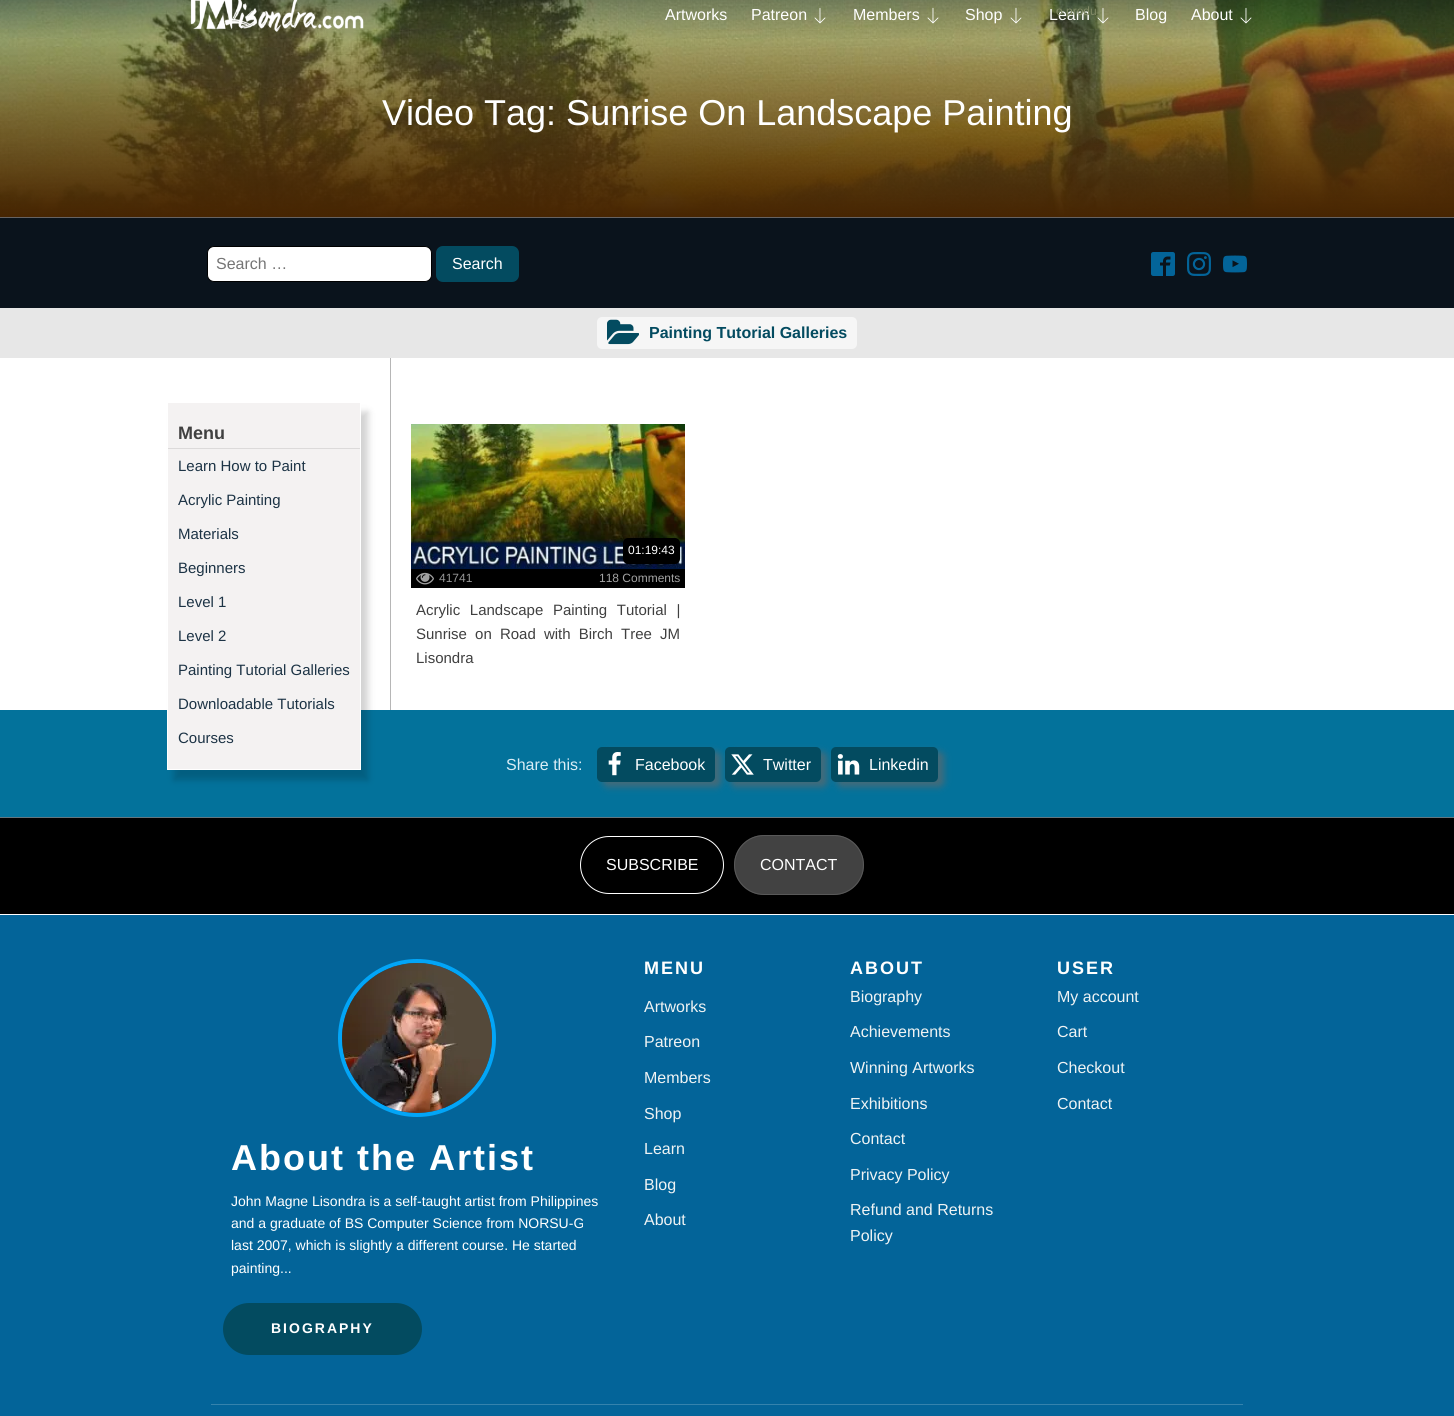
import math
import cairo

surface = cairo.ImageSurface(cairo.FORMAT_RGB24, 1454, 1416)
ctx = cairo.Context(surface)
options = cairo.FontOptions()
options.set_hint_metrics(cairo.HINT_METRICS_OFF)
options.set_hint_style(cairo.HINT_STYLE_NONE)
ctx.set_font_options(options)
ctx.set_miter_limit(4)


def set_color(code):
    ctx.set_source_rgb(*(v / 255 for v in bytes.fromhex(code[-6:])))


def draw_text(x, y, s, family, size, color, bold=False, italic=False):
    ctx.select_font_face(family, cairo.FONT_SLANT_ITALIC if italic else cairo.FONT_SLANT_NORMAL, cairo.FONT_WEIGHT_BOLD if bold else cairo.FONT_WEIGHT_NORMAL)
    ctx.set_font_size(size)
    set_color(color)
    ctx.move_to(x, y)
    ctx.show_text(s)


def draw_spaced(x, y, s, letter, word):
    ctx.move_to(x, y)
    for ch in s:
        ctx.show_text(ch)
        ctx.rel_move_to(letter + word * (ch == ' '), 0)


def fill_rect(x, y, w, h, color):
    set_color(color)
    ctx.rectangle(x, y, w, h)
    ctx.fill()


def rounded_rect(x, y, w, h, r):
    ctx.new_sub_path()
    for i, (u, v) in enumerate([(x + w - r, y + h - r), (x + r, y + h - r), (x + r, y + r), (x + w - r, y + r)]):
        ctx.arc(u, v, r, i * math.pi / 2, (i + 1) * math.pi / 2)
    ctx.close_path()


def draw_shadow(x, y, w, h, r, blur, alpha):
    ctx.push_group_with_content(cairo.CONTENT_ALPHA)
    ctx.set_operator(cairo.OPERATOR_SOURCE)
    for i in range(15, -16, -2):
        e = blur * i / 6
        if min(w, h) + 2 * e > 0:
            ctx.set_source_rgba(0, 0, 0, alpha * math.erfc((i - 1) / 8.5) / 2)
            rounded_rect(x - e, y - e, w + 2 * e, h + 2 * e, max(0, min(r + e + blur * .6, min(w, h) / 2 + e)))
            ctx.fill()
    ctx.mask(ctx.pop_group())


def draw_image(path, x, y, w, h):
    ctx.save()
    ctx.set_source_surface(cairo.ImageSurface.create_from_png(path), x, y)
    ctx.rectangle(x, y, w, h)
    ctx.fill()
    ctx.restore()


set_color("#ffffff")
ctx.paint()
draw_image("assets/img7.png", 0, 0, 1454, 217)
draw_text(1049, 20, "Learn", "Liberation Sans", 16, "#ffffff")
draw_text(1056, 15, "o produ", "Liberation Sans", 12, "#838b67")
draw_image("assets/img1.png", 190, 0, 174, 32)
draw_text(665, 20, "Artworks", "Liberation Sans", 16, "#ffffff")
draw_text(751, 20, "Patreon", "Liberation Sans", 16, "#ffffff")
draw_image("assets/img2.png", 814, 7, 12, 17)
draw_text(853, 20, "Members", "Liberation Sans", 16, "#ffffff")
draw_image("assets/img3.png", 927, 7, 12, 17)
draw_text(965, 20, "Shop", "Liberation Sans", 16, "#ffffff")
draw_image("assets/img4.png", 1010, 7, 12, 17)
draw_image("assets/img5.png", 1097, 7, 12, 17)
draw_text(1135, 20, "Blog", "Liberation Sans", 16, "#ffffff")
draw_text(1191, 20, "About", "Liberation Sans", 16, "#ffffff")
draw_image("assets/img6.png", 1240, 7, 12, 17)
fill_rect(0, 217, 1454, 1, "#666363")
draw_text(382, 125, "Video Tag: Sunrise On Landscape Painting", "Liberation Sans", 36, "#ffffff")
fill_rect(0, 218, 1454, 90, "#0a131c")
set_color("#ffffff")
rounded_rect(207.5, 246.5, 224, 35, 6.5)
ctx.fill_preserve()
set_color("#000000")
ctx.set_line_width(1)
ctx.stroke()
draw_text(216, 269, "Search …", "Liberation Sans", 16, "#757575")
set_color("#034b60")
rounded_rect(436, 246, 83, 36, 7)
ctx.fill()
draw_text(452, 269, "Search", "Liberation Sans", 16, "#ffffff")
draw_image("assets/img8.png", 1151, 252, 24, 24)
draw_image("assets/img9.png", 1187, 252, 24, 24)
draw_image("assets/img10.png", 1223, 255, 24, 18)
fill_rect(0, 308, 1454, 50, "#e7e7e7")
set_color("#f6f6f6")
rounded_rect(597, 317, 260, 32, 5)
ctx.fill()
draw_image("assets/img11.png", 607, 319, 32, 26)
draw_text(649, 338, "Painting Tutorial Galleries", "Liberation Sans", 16, "#034b60", bold=True)
fill_rect(390, 358, 1, 352, "#b6b6b6")
fill_rect(0, 710, 1454, 107, "#03729b")
set_color("#000000")
draw_shadow(174, 412, 194, 368, 0, 3.5, 0.18)
set_color("#f4f2f2")
ctx.rectangle(167.5, 402.5, 193, 367)
ctx.fill_preserve()
set_color("#ffffff")
ctx.stroke()
draw_text(178, 439, "Menu", "Liberation Sans", 18, "#404040", bold=True)
fill_rect(168, 448, 192, 1, "#dcdada")
draw_text(178, 471, "Learn How to Paint", "Liberation Sans", 15, "#1c3345")
draw_text(178, 505, "Acrylic Painting", "Liberation Sans", 15, "#1c3345")
draw_text(178, 539, "Materials", "Liberation Sans", 15, "#1c3345")
draw_text(178, 573, "Beginners", "Liberation Sans", 15, "#1c3345")
draw_text(178, 607, "Level 1", "Liberation Sans", 15, "#1c3345")
draw_text(178, 641, "Level 2", "Liberation Sans", 15, "#1c3345")
draw_text(178, 675, "Painting Tutorial Galleries", "Liberation Sans", 15, "#1c3345")
draw_text(178, 709, "Downloadable Tutorials", "Liberation Sans", 15, "#1c3345")
draw_text(178, 743, "Courses", "Liberation Sans", 15, "#1c3345")
draw_image("assets/img12.png", 411, 424, 274, 145)
set_color("#000000")
rounded_rect(623, 538, 57, 26, 5)
ctx.fill()
draw_text(628, 554, "01:19:43", "Liberation Sans", 12, "#ffffff")
fill_rect(411, 569, 274, 19, "#000000")
draw_image("assets/img13.png", 416, 572, 18, 13)
draw_text(439, 582, "41741", "Liberation Sans", 12, "#969696")
draw_text(599, 582, "118 Comments", "Liberation Sans", 12, "#a3a3a3")
ctx.set_font_size(15)
set_color("#404040")
draw_spaced(416, 615, "Acrylic Landscape Painting Tutorial |", 0, 5.5)
draw_spaced(416, 639, "Sunrise on Road with Birch Tree JM", 0, 4)
draw_text(416, 663, "Lisondra", "Liberation Sans", 15, "#404040")
draw_text(506, 770, "Share this:", "Liberation Sans", 16, "#dbedf6")
set_color("#666666")
draw_shadow(603, 752, 118, 35, 5, 3.5, 0.65)
set_color("#034b60")
rounded_rect(597, 747, 118, 35, 5)
ctx.fill()
draw_image("assets/img14.png", 608, 752, 13, 24)
draw_text(635, 770, "Facebook", "Liberation Sans", 16, "#ffffff")
set_color("#666666")
draw_shadow(731, 752, 96, 35, 5, 3.5, 0.65)
set_color("#034b60")
rounded_rect(725, 747, 96, 35, 5)
ctx.fill()
draw_image("assets/img15.png", 731, 754, 23, 21)
draw_text(763, 770, "Twitter", "Liberation Sans", 16, "#ffffff")
set_color("#666666")
draw_shadow(837, 752, 107, 35, 5, 3.5, 0.65)
set_color("#034b60")
rounded_rect(831, 747, 107, 35, 5)
ctx.fill()
draw_image("assets/img16.png", 837, 754, 23, 21)
draw_text(869, 770, "Linkedin", "Liberation Sans", 16, "#ffffff")
fill_rect(0, 818, 1454, 96, "#000000")
fill_rect(0, 817, 1454, 1, "#65767f")
rounded_rect(580.5, 836.5, 143, 57, 28.5)
set_color("#ffffff")
ctx.stroke()
draw_text(606, 870, "SUBSCRIBE", "Liberation Sans", 16, "#ffffff")
set_color("#424242")
rounded_rect(734, 835, 130, 60, 30)
ctx.fill()
rounded_rect(734.5, 835.5, 129, 59, 29.5)
ctx.set_source_rgba(0.4, 0.4, 0.4, 0.65)
ctx.stroke()
draw_text(760, 870, "CONTACT", "Liberation Sans", 16, "#ffffff")
fill_rect(0, 915, 1454, 501, "#036499")
ctx.select_font_face("Liberation Sans", cairo.FONT_SLANT_NORMAL, cairo.FONT_WEIGHT_BOLD)
ctx.set_font_size(18)
set_color("#ffffff")
draw_spaced(644, 974, "MENU", 2, 0)
draw_text(644, 1012, "Artworks", "Liberation Sans", 16, "#eff3f4")
draw_text(644, 1047, "Patreon", "Liberation Sans", 16, "#eff3f4")
draw_text(644, 1083, "Members", "Liberation Sans", 16, "#eff3f4")
draw_text(644, 1119, "Shop", "Liberation Sans", 16, "#eff3f4")
draw_text(644, 1154, "Learn", "Liberation Sans", 16, "#eff3f4")
draw_text(644, 1190, "Blog", "Liberation Sans", 16, "#eff3f4")
draw_text(644, 1225, "About", "Liberation Sans", 16, "#eff3f4")
ctx.select_font_face("Liberation Sans", cairo.FONT_SLANT_NORMAL, cairo.FONT_WEIGHT_BOLD)
ctx.set_font_size(18)
set_color("#ffffff")
draw_spaced(850, 974, "ABOUT", 2, 0)
draw_text(850, 1002, "Biography", "Liberation Sans", 16, "#eff3f4")
draw_text(850, 1037, "Achievements", "Liberation Sans", 16, "#eff3f4")
draw_text(850, 1073, "Winning Artworks", "Liberation Sans", 16, "#eff3f4")
draw_text(850, 1109, "Exhibitions", "Liberation Sans", 16, "#eff3f4")
draw_text(850, 1144, "Contact", "Liberation Sans", 16, "#eff3f4")
draw_text(850, 1180, "Privacy Policy", "Liberation Sans", 16, "#eff3f4")
draw_text(850, 1215, "Refund and Returns", "Liberation Sans", 16, "#eff3f4")
draw_text(850, 1241, "Policy", "Liberation Sans", 16, "#eff3f4")
ctx.select_font_face("Liberation Sans", cairo.FONT_SLANT_NORMAL, cairo.FONT_WEIGHT_BOLD)
ctx.set_font_size(18)
set_color("#ffffff")
draw_spaced(1057, 974, "USER", 2, 0)
draw_text(1057, 1002, "My account", "Liberation Sans", 16, "#eff3f4")
draw_text(1057, 1037, "Cart", "Liberation Sans", 16, "#eff3f4")
draw_text(1057, 1073, "Checkout", "Liberation Sans", 16, "#eff3f4")
draw_text(1057, 1109, "Contact", "Liberation Sans", 16, "#eff3f4")
ctx.new_path()
ctx.arc(417, 1038, 77, 0, 2 * math.pi)
set_color("#02a5f7")
ctx.set_line_width(4)
ctx.stroke()
draw_image("assets/img17.png", 342, 963, 150, 150)
ctx.select_font_face("Liberation Sans", cairo.FONT_SLANT_NORMAL, cairo.FONT_WEIGHT_BOLD)
ctx.set_font_size(36)
set_color("#ffffff")
draw_spaced(231, 1170, "About the Artist", 2, 0)
draw_text(231, 1206, "John Magne Lisondra is a self-taught artist from Philippines", "Liberation Sans", 14, "#ffffff")
draw_text(231, 1228, "and a graduate of BS Computer Science from NORSU-G", "Liberation Sans", 14, "#ffffff")
draw_text(231, 1250, "last 2007, which is slightly a different course. He started", "Liberation Sans", 14, "#ffffff")
draw_text(231, 1273, "painting...", "Liberation Sans", 14, "#ffffff")
set_color("#034b60")
rounded_rect(223, 1303, 199, 52, 26)
ctx.fill()
ctx.select_font_face("Liberation Sans", cairo.FONT_SLANT_NORMAL, cairo.FONT_WEIGHT_BOLD)
set_color("#ffffff")
draw_spaced(271, 1333, "BIOGRAPHY", 2, 0)
fill_rect(211, 1404, 1032, 1, "#3583ad")
surface.write_to_png("output.png")
